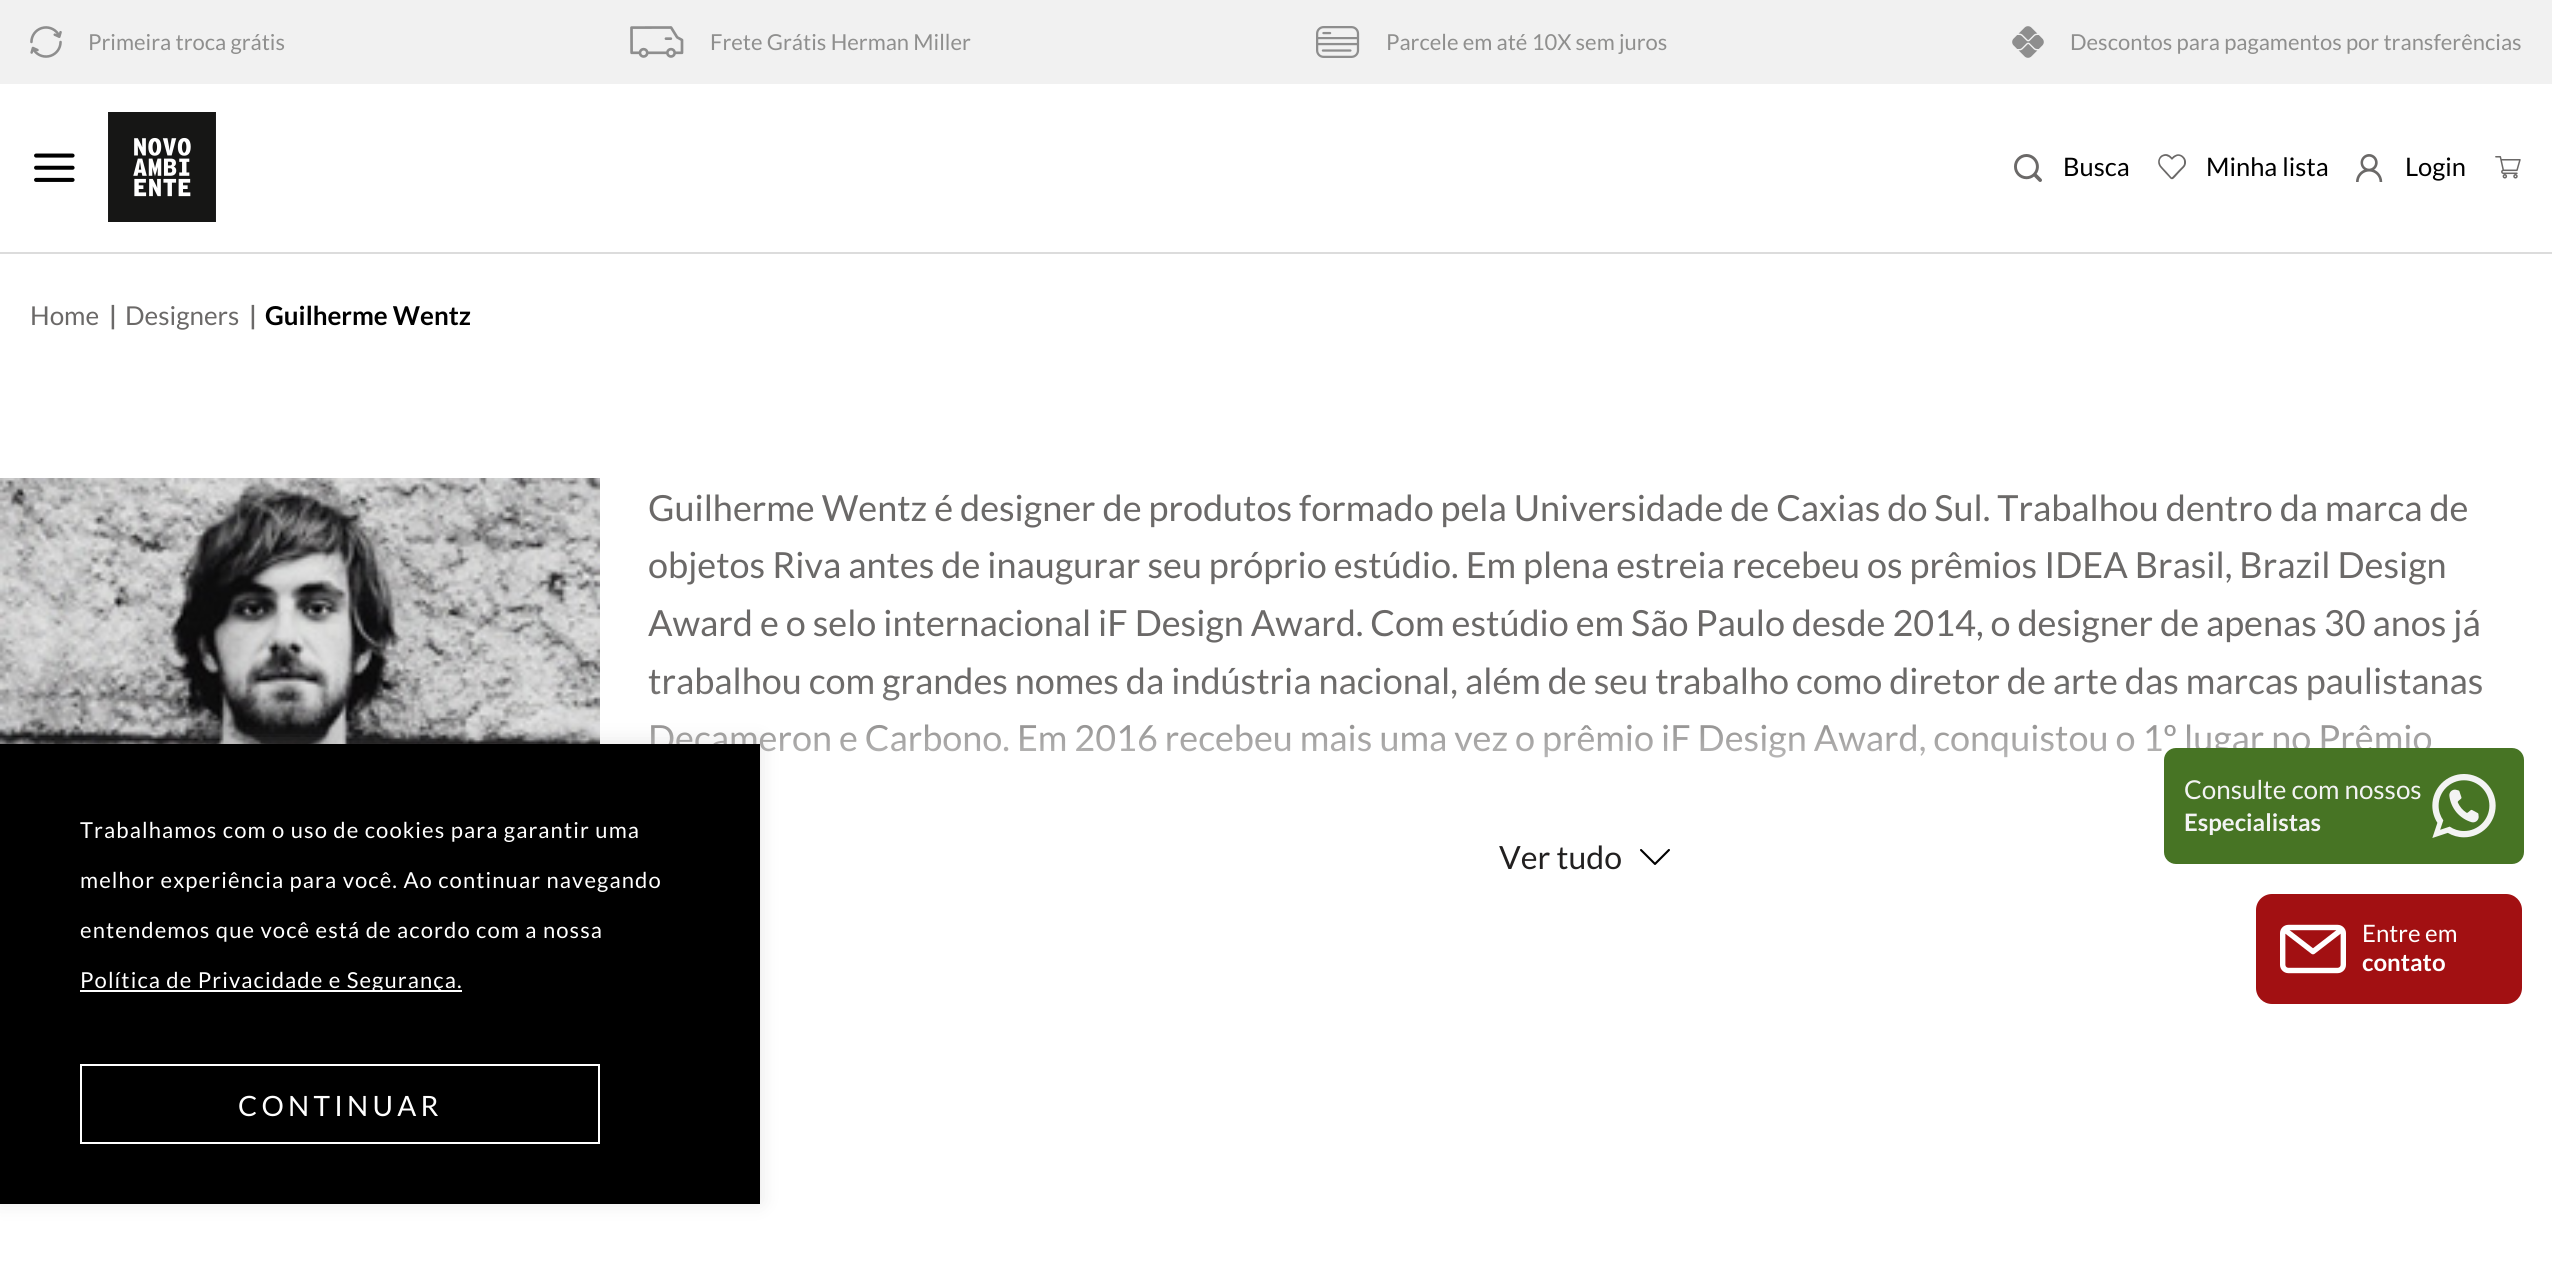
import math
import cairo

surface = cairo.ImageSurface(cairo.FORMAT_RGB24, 2552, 1263)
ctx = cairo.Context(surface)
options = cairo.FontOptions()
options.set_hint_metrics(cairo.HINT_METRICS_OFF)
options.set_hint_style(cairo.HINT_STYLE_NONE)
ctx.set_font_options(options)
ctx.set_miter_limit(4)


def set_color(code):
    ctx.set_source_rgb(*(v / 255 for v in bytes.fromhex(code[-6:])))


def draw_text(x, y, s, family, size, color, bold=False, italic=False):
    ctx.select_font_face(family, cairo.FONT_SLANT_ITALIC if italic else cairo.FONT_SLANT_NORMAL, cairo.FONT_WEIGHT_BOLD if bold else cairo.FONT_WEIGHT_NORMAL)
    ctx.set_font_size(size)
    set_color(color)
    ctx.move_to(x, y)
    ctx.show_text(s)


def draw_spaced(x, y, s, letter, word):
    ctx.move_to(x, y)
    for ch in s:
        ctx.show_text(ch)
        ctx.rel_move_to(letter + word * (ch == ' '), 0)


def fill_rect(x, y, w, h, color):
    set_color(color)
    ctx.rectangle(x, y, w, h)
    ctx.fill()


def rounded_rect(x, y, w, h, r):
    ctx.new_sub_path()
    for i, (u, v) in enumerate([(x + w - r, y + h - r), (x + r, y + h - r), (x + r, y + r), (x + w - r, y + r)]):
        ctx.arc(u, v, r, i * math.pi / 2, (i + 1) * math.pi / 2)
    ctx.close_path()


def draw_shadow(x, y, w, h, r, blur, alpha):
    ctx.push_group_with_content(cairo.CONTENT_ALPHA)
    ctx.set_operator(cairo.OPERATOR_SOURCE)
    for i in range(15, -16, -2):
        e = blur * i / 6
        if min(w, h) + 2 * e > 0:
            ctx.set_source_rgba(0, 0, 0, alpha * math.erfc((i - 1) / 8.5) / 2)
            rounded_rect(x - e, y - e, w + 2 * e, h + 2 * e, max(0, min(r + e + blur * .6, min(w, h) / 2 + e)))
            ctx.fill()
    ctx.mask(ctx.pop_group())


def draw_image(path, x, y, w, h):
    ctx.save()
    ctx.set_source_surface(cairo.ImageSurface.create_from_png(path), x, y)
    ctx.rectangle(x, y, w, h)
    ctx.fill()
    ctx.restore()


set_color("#ffffff")
ctx.paint()
fill_rect(0, 0, 2552, 84, "#f1f1f1")
draw_image("assets/img1.png", 30, 26, 32, 32)
draw_text(88, 50, "Primeira troca grátis", "Lato", 22, "#8f8f8e")
draw_image("assets/img2.png", 630, 26, 54, 32)
draw_text(710, 50, "Frete Grátis Herman Miller", "Lato", 22, "#8f8f8e")
draw_image("assets/img3.png", 1316, 26, 44, 32)
draw_text(1386, 50, "Parcele em até 10X sem juros", "Lato", 22, "#8f8f8e")
draw_image("assets/img4.png", 2012, 26, 32, 32)
draw_text(2070, 50, "Descontos para pagamentos por transferências", "Lato", 22, "#8f8f8e")
fill_rect(0, 252, 2552, 2, "#dcdcdc")
draw_image("assets/img5.png", 34, 153, 41, 29)
draw_image("assets/img6.png", 108, 112, 108, 110)
draw_image("assets/img7.png", 2014, 154, 28, 28)
draw_text(2063, 176, "Busca", "Lato", 25.5, "#000000")
draw_image("assets/img8.png", 2158, 154, 28, 26)
draw_text(2206, 176, "Minha lista", "Lato", 25.5, "#000000")
draw_image("assets/img9.png", 2356, 154, 27, 28)
draw_text(2405, 176, "Login", "Lato", 25.5, "#000000")
draw_image("assets/img10.png", 2495, 156, 26, 23)
draw_text(30, 325, "Home", "Lato", 26, "#6b6968")
draw_text(109, 325, "|", "Lato", 26, "#6b6968", bold=True)
draw_text(125, 325, "Designers", "Lato", 26, "#6b6968")
draw_text(249, 325, "|", "Lato", 26, "#6b6968", bold=True)
draw_text(265, 325, "Guilherme Wentz", "Lato", 26, "#000000", bold=True)
draw_image("assets/img11.png", 0, 478, 600, 266)
draw_text(648, 521, "Guilherme Wentz é designer de produtos formado pela Universidade de Caxias do Sul. Trabalhou dentro da marca de", "Lato", 36, "#6b6968")
draw_text(648, 578, "objetos Riva antes de inaugurar seu próprio estúdio. Em plena estreia recebeu os prêmios IDEA Brasil, Brazil Design", "Lato", 36, "#6b6968")
draw_text(648, 636, "Award e o selo internacional iF Design Award. Com estúdio em São Paulo desde 2014, o designer de apenas 30 anos já", "Lato", 36, "#6b6968")
draw_text(648, 694, "trabalhou com grandes nomes da indústria nacional, além de seu trabalho como diretor de arte das marcas paulistanas", "Lato", 36, "#6b6968")
draw_text(648, 751, "Decameron e Carbono. Em 2016 recebeu mais uma vez o prêmio iF Design Award, conquistou o 1º lugar no Prêmio", "Lato", 36, "#6b6968")
gradient = cairo.LinearGradient(1585, 682, 1585, 882)
gradient.add_color_stop_rgba(0, 1, 1, 1, 0)
gradient.add_color_stop_rgba(0.73, 1, 1, 1, 1)
gradient.add_color_stop_rgba(1, 1, 1, 1, 1)
ctx.set_source(gradient)
ctx.rectangle(651, 685, 1831, 73)
ctx.fill()
draw_text(1499, 869, "Ver tudo", "Lato", 32, "#222020")
draw_image("assets/img12.png", 1640, 849, 30, 16)
set_color("#477424")
rounded_rect(2164, 748, 360, 116, 12)
ctx.fill()
draw_text(2184, 799, "Consulte com nossos", "Lato", 26, "#f3f3f3")
draw_text(2184, 831, "Especialistas", "Lato", 24, "#f3f3f3", bold=True)
draw_image("assets/img13.png", 2432, 774, 64, 64)
set_color("#acabab")
draw_shadow(0, 742, 760, 460, 0, 10, 0.3)
fill_rect(0, 744, 760, 460, "#000000")
ctx.select_font_face("Lato")
ctx.set_font_size(22)
set_color("#ffffff")
draw_spaced(80, 838, "Trabalhamos com o uso de cookies para garantir uma", 1.1, 0)
draw_spaced(80, 888, "melhor experiência para você. Ao continuar navegando", 1.1, 0)
draw_spaced(80, 938, "entendemos que você está de acordo com a nossa", 1.1, 0)
fill_rect(80, 990, 382, 2, "#ffffff")
draw_spaced(80, 988, "Política de Privacidade e Segurança.", 1.1, 0)
ctx.rectangle(81, 1065, 518, 78)
ctx.stroke()
ctx.set_font_size(28)
draw_spaced(238, 1116, "CONTINUAR", 4.25, 0)
set_color("#a21012")
rounded_rect(2256, 894, 266, 110, 16)
ctx.fill()
draw_image("assets/img14.png", 2280, 924, 66, 50)
draw_text(2362, 942, "Entre em", "Lato", 24, "#ffffff")
draw_text(2362, 971, "contato", "Lato", 24, "#ffffff", bold=True)
surface.write_to_png("output.png")
